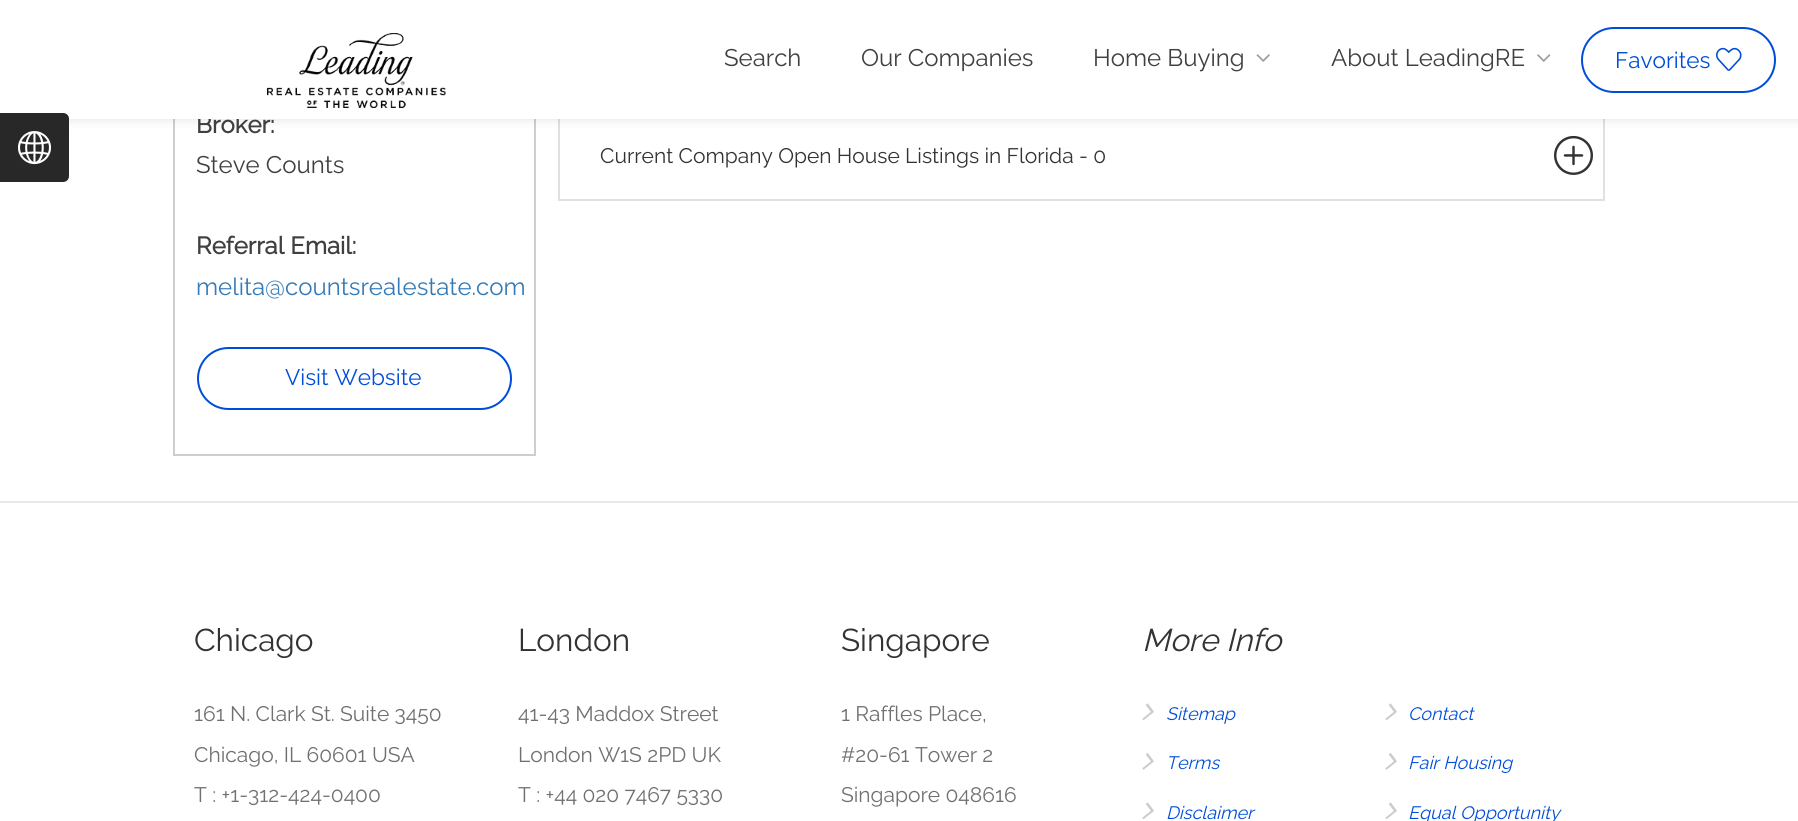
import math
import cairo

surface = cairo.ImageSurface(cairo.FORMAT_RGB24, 1798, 821)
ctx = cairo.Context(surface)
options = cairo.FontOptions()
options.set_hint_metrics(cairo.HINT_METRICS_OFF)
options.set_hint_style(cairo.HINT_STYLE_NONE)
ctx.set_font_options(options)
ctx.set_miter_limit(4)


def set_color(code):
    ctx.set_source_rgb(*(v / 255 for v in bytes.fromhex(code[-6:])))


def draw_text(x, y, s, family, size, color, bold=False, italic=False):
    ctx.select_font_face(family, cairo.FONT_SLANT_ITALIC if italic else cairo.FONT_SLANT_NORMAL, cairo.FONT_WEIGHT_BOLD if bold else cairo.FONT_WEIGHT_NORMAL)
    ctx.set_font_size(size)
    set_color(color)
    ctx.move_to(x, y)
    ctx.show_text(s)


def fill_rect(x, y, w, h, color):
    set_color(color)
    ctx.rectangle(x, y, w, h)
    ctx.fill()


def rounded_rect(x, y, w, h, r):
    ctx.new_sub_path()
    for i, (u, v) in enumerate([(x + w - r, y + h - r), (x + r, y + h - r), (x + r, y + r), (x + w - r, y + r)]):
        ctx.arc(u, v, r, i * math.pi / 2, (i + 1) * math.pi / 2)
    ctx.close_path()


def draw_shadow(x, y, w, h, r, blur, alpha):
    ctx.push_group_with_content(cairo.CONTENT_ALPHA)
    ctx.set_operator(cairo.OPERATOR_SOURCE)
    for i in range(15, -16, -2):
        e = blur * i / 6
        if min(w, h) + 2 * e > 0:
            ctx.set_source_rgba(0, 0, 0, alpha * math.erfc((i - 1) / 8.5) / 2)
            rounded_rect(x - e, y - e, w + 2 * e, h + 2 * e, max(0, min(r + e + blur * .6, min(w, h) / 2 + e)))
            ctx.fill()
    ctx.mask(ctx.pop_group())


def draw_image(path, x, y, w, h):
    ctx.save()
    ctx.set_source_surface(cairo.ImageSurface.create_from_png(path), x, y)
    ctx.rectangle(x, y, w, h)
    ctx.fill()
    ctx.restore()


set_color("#ffffff")
ctx.paint()
ctx.rectangle(174, -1, 361, 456)
set_color("#cecece")
ctx.stroke()
ctx.rectangle(559, 112, 1045, 88)
set_color("#e0e0e0")
ctx.stroke()
draw_image("assets/img6.png", 1554, 135, 39, 40)
set_color("#000000")
draw_shadow(0, 0, 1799, 119, 0, 6, 0.12)
draw_text(196, 133, "Broker:", "Raleway", 24, "#404040", bold=True)
fill_rect(0, 0, 1798, 119, "#ffffff")
set_color("#282828")
ctx.new_path()
ctx.move_to(0, 113)
ctx.line_to(63, 113)
ctx.curve_to(66.5, 113, 69, 115.5, 69, 119)
ctx.line_to(69, 176)
ctx.curve_to(69, 179.5, 66.5, 182, 63, 182)
ctx.line_to(0, 182)
ctx.close_path()
ctx.fill()
draw_image("assets/img1.png", 18, 131, 33, 34)
draw_image("assets/img2.png", 267, 33, 179, 75)
draw_text(724, 66, "Search", "Raleway Thin", 24, "#404040")
draw_text(861, 66, "Our Companies", "Raleway Thin", 24, "#404040")
draw_text(1093, 66, "Home Buying", "Raleway Thin", 24, "#404040")
draw_image("assets/img3.png", 1256, 54, 14, 8)
draw_text(1331, 66, "About LeadingRE", "Raleway Thin", 24, "#404040")
draw_image("assets/img4.png", 1537, 54, 14, 8)
rounded_rect(1582, 28, 193, 64, 32)
set_color("#004dda")
ctx.stroke()
draw_text(1615, 68, "Favorites", "Raleway Thin", 22.5, "#004dda")
draw_image("assets/img5.png", 1716, 47, 26, 24)
draw_text(196, 173, "Steve Counts", "Raleway Thin", 24, "#404040")
draw_text(196, 254, "Referral Email:", "Raleway", 24, "#404040", bold=True)
draw_text(196, 295, "melita@countsrealestate.com", "Raleway Thin", 24, "#337ab7")
rounded_rect(198, 348, 313, 61, 30.5)
set_color("#004dda")
ctx.stroke()
draw_text(285, 385, "Visit Website", "Raleway Thin", 22.5, "#004dda")
draw_text(600, 163, "Current Company Open House Listings in Florida - 0", "Raleway Thin", 21, "#333333")
fill_rect(0, 501, 1798, 2, "#e8e8e8")
draw_text(194, 651, "Chicago", "Raleway Thin", 31.5, "#333333")
draw_text(194, 721, "161 N. Clark St. Suite 3450", "Raleway Thin", 21, "#707070")
draw_text(194, 762, "Chicago, IL 60601 USA", "Raleway Thin", 21, "#707070")
draw_text(194, 802, "T : +1-312-424-0400", "Raleway Thin", 21, "#707070")
draw_text(518, 651, "London", "Raleway Thin", 31.5, "#333333")
draw_text(518, 721, "41-43 Maddox Street", "Raleway Thin", 21, "#707070")
draw_text(518, 762, "London W1S 2PD UK", "Raleway Thin", 21, "#707070")
draw_text(518, 802, "T : +44 020 7467 5330", "Raleway Thin", 21, "#707070")
draw_text(841, 651, "Singapore", "Raleway Thin", 31.5, "#333333")
draw_text(841, 721, "1 Raffles Place,", "Raleway Thin", 21, "#707070")
draw_text(841, 762, "#20-61 Tower 2", "Raleway Thin", 21, "#707070")
draw_text(841, 802, "Singapore 048616", "Raleway Thin", 21, "#707070")
draw_text(1142, 651, "More Info", "Raleway Thin", 31.5, "#333333", italic=True)
draw_image("assets/img7.png", 1142, 703, 12, 18)
draw_text(1166, 720, "Sitemap", "Raleway Thin", 18, "#004dda", italic=True)
draw_image("assets/img8.png", 1142, 753, 12, 17)
draw_text(1166, 769, "Terms", "Raleway Thin", 18, "#004dda", italic=True)
draw_image("assets/img7.png", 1142, 802, 12, 18)
draw_text(1166, 819, "Disclaimer", "Raleway Thin", 18, "#004dda", italic=True)
draw_image("assets/img7.png", 1385, 703, 12, 18)
draw_text(1408, 720, "Contact", "Raleway Thin", 18, "#004dda", italic=True)
draw_image("assets/img8.png", 1385, 753, 12, 17)
draw_text(1408, 769, "Fair Housing", "Raleway Thin", 18, "#004dda", italic=True)
draw_image("assets/img7.png", 1385, 802, 12, 18)
draw_text(1408, 819, "Equal Opportunity", "Raleway Thin", 18, "#004dda", italic=True)
surface.write_to_png("output.png")
